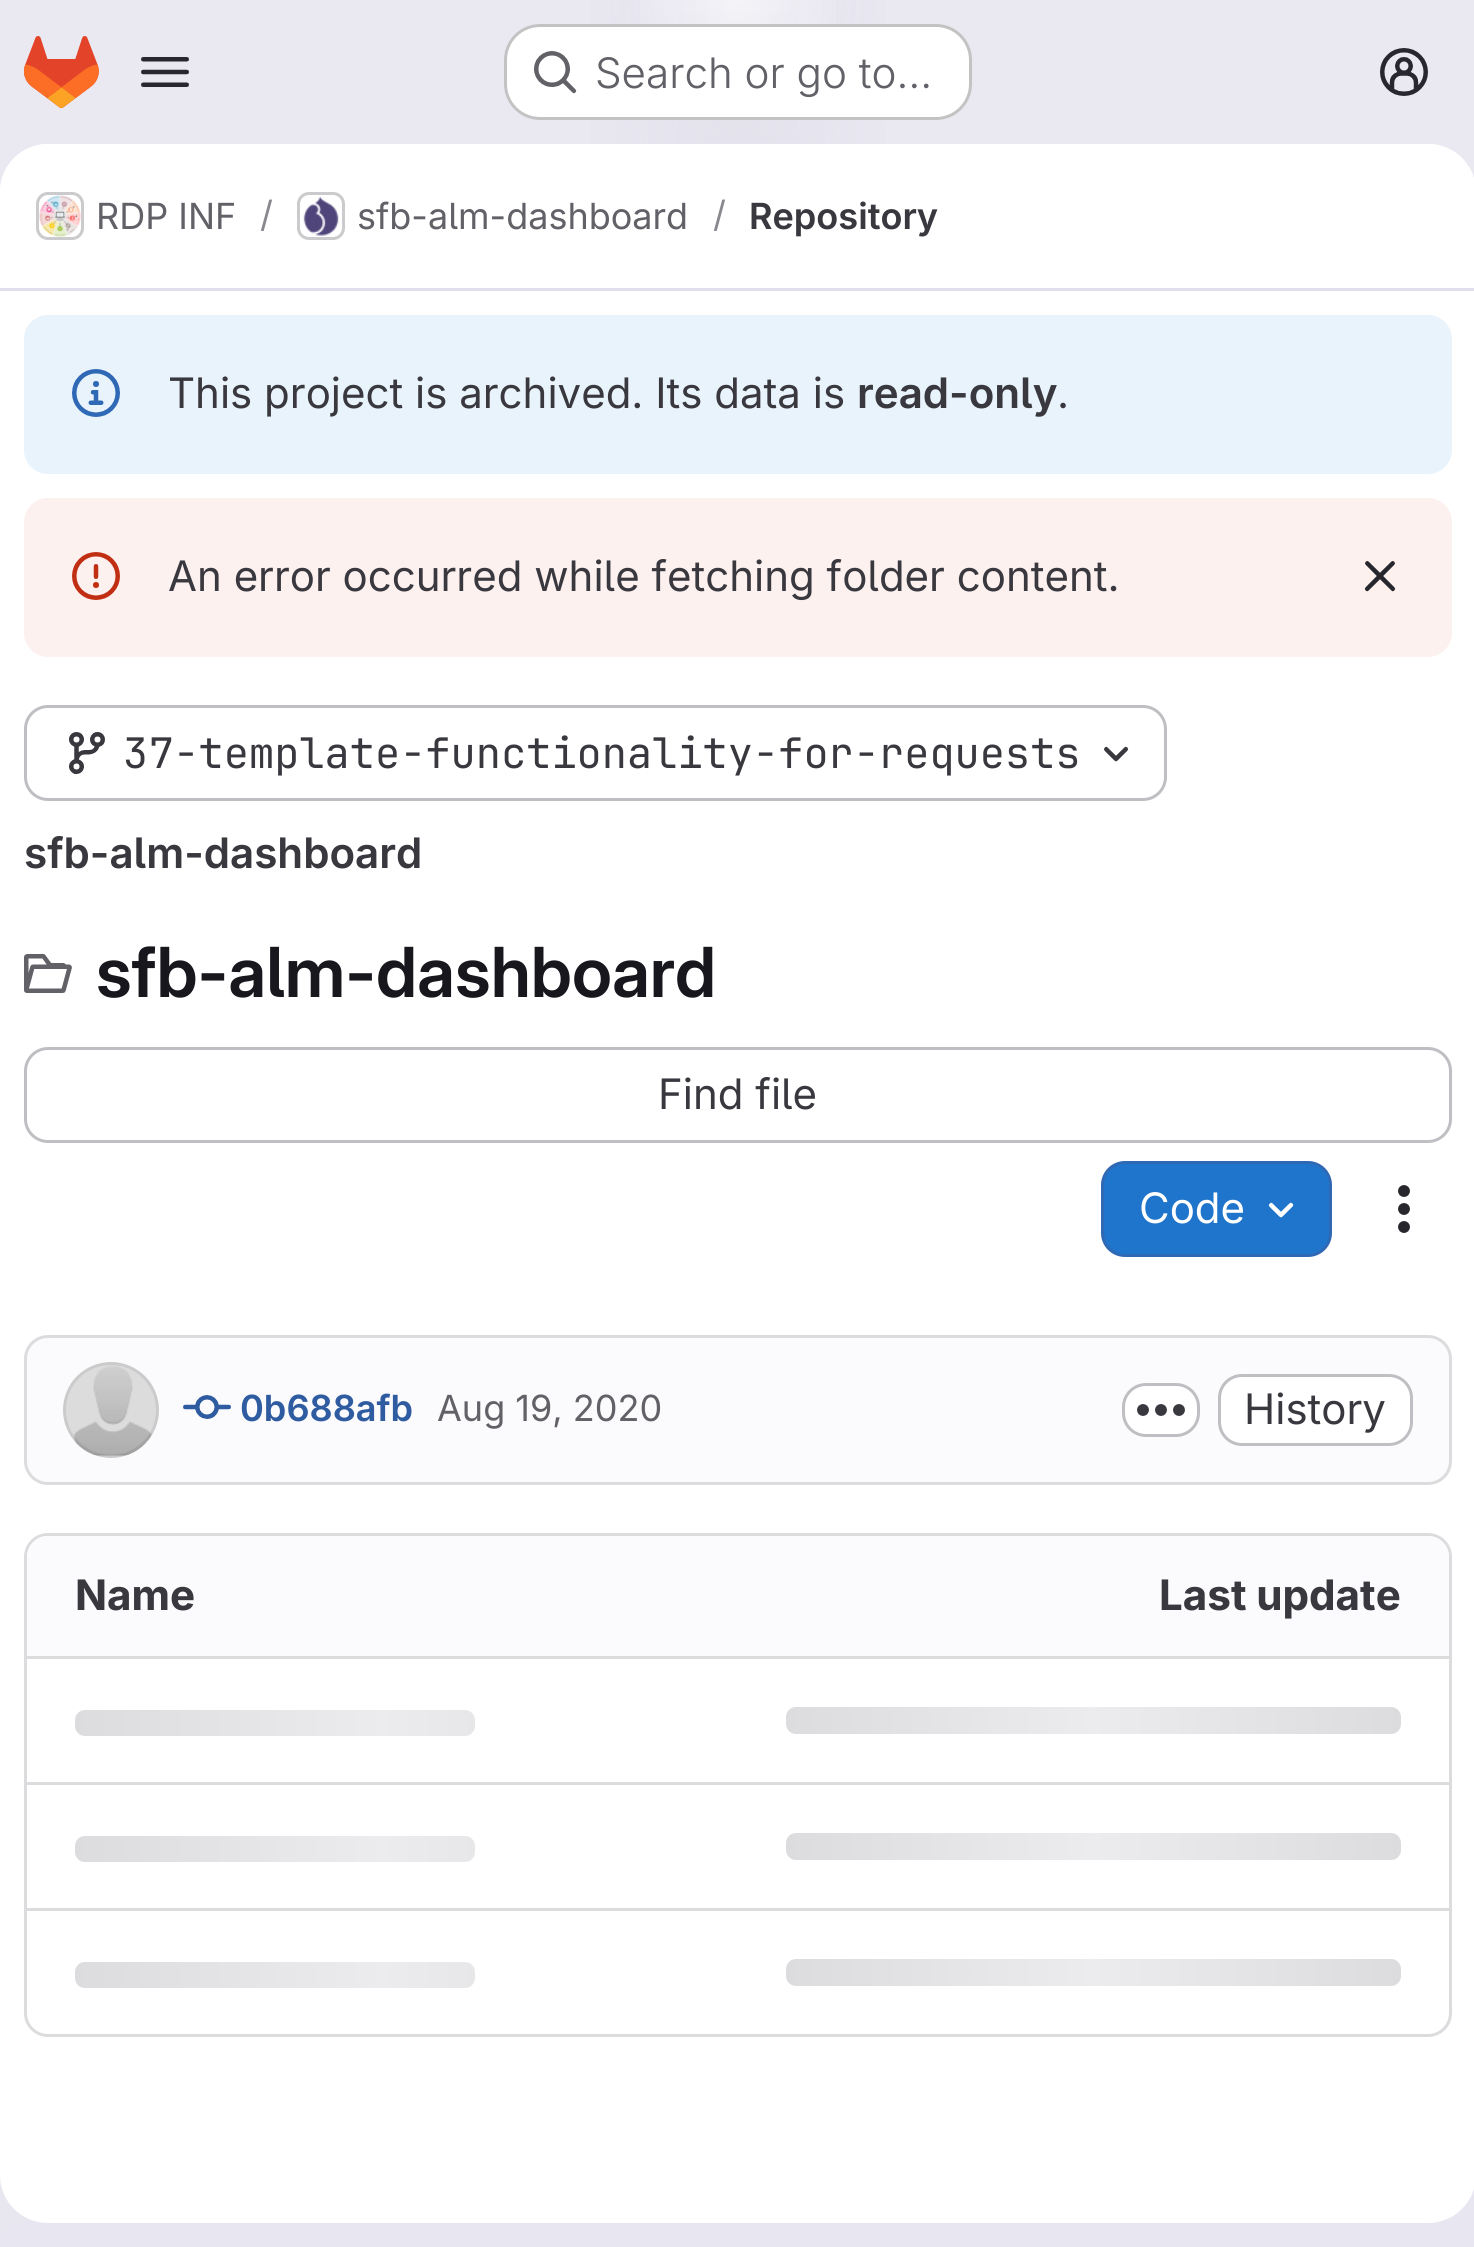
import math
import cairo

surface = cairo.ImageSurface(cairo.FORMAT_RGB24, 1474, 2247)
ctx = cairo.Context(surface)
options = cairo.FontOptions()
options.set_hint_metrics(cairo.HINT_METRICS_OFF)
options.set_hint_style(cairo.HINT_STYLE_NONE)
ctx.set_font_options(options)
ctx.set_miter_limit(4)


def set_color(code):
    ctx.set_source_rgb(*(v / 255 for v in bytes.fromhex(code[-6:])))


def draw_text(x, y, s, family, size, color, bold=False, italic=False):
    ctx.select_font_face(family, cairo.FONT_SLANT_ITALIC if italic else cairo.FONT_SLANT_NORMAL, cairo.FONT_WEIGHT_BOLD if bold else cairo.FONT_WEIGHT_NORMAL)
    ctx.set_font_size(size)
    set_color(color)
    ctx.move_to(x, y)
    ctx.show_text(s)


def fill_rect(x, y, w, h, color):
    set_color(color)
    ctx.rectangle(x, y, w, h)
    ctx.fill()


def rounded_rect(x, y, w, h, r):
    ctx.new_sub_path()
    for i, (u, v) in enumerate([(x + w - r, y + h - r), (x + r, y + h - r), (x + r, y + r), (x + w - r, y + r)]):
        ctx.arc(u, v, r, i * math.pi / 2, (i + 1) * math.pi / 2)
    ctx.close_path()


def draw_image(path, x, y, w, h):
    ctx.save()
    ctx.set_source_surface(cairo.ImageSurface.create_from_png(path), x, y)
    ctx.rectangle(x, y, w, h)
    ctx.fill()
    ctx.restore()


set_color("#ffffff")
ctx.paint()
gradient = cairo.LinearGradient(952, 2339, 524, -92)
gradient.add_color_stop_rgba(0, 0.91, 0.902, 0.941, 1)
gradient.add_color_stop_rgba(0.7, 0.918, 0.914, 0.949, 1)
ctx.set_source(gradient)
ctx.rectangle(0, 0, 1474, 2247)
ctx.fill()
gradient = cairo.RadialGradient(0, 0, 0, 0, 0, 1)
gradient.set_matrix(cairo.Matrix(1 / 738, 0, 0, 1 / 2247, -1 * 738 / 738, -1 * 0 / 2247))
gradient.add_color_stop_rgba(0, 0.894, 0.886, 0.929, 1)
gradient.add_color_stop_rgba(0.28, 0.894, 0.886, 0.929, 0)
ctx.set_source(gradient)
ctx.rectangle(590, 0, 296, 144)
ctx.fill()
gradient = cairo.RadialGradient(0, 0, 0, 0, 0, 1)
gradient.set_matrix(cairo.Matrix(1 / 738, 0, 0, 1 / 2247, -1 * 738 / 738, -1 * 0 / 2247))
gradient.add_color_stop_rgba(0, 0.894, 0.886, 0.925, 1)
gradient.add_color_stop_rgba(0.2, 0.894, 0.886, 0.925, 0)
ctx.set_source(gradient)
ctx.rectangle(678, 13, 120, 127)
ctx.fill()
gradient = cairo.RadialGradient(738, 0, 0, 738, 0, 2365)
gradient.add_color_stop_rgba(0, 1, 1, 1, 0.6)
gradient.add_color_stop_rgba(0.05, 1, 1, 1, 0)
ctx.set_source(gradient)
ctx.rectangle(640, 0, 196, 100)
ctx.fill()
draw_image("assets/img1.png", 24, 36, 75, 72)
draw_image("assets/img2.png", 141, 57, 48, 30)
set_color("#ffffff")
rounded_rect(504, 24, 468, 96, 36)
ctx.fill()
rounded_rect(505.5, 25.5, 465, 93, 34.5)
ctx.set_source_rgba(0.02, 0.02, 0.024, 0.24)
ctx.set_line_width(3)
ctx.stroke()
draw_image("assets/img3.png", 534, 51, 43, 43)
draw_text(595, 88, "Search or go to…", "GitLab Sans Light", 42, "#626168")
draw_image("assets/img4.png", 1380, 48, 48, 48)
set_color("#ffffff")
rounded_rect(0, 144, 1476, 2079, 48)
ctx.fill()
ctx.new_path()
ctx.move_to(48, 144)
ctx.line_to(1428, 144)
ctx.curve_to(1454.5, 144, 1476, 165.5, 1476, 192)
ctx.line_to(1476, 291)
ctx.line_to(0, 291)
ctx.line_to(0, 192)
ctx.curve_to(0, 165.5, 21.5, 144, 48, 144)
ctx.close_path()
ctx.fill()
fill_rect(0, 288, 1474, 3, "#e1dfec")
rounded_rect(37.5, 193.5, 45, 45, 10.5)
set_color("#dcdcde")
ctx.stroke()
draw_image("assets/img5.png", 39, 195, 42, 42)
rounded_rect(37.5, 193.5, 45, 45, 10.5)
ctx.set_source_rgba(0.02, 0.02, 0.024, 0.08)
ctx.stroke()
draw_text(96, 229, "RDP INF", "GitLab Sans", 36, "#626168")
draw_text(260, 227, "/", "GitLab Sans", 36, "#89888d")
rounded_rect(298.5, 193.5, 45, 45, 10.5)
set_color("#dcdcde")
ctx.stroke()
draw_image("assets/img6.png", 303, 196, 36, 40)
rounded_rect(298.5, 193.5, 45, 45, 10.5)
ctx.set_source_rgba(0.02, 0.02, 0.024, 0.08)
ctx.stroke()
draw_text(357, 229, "sfb-alm-dashboard", "GitLab Sans", 36, "#626168")
draw_text(713, 227, "/", "GitLab Sans", 36, "#89888d")
draw_text(749, 229, "Repository", "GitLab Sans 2 SemiBold", 36, "#3a383f")
set_color("#e9f3fc")
rounded_rect(24, 315, 1428, 159, 24)
ctx.fill()
draw_image("assets/img7.png", 72, 369, 48, 48)
draw_text(168, 408, "This project is archived. Its data is", "GitLab Sans", 42, "#3a383f")
draw_text(857, 408, "read-only", "GitLab Sans 2 SemiBold", 42, "#3a383f")
draw_text(1057, 408, ".", "GitLab Sans", 42, "#3a383f")
set_color("#fcf1ef")
rounded_rect(24, 498, 1428, 159, 24)
ctx.fill()
draw_image("assets/img8.png", 72, 552, 48, 48)
draw_text(168, 591, "An error occurred while fetching folder content.", "GitLab Sans", 42, "#3a383f")
draw_image("assets/img9.png", 1364, 561, 32, 31)
rounded_rect(25.5, 706.5, 1140, 93, 22.5)
set_color("#bfbfc3")
ctx.stroke()
draw_image("assets/img10.png", 69, 732, 36, 42)
draw_text(123, 768, "37-template-functionality-for-requests", "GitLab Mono", 42, "#3a383f")
draw_image("assets/img11.png", 1103, 746, 26, 16)
draw_text(24, 868, "sfb-alm-dashboard", "GitLab Sans 2 SemiBold", 42, "#3a383f")
draw_image("assets/img12.png", 24, 954, 48, 39)
draw_text(96, 997, "sfb-alm-dashboard", "GitLab Sans SemiBold", 69, "#18171d")
rounded_rect(25.5, 1048.5, 1425, 93, 22.5)
set_color("#bfbfc3")
ctx.stroke()
draw_text(658, 1109, "Find file", "GitLab Sans", 42, "#3a383f")
set_color("#1f75cb")
rounded_rect(1102.5, 1162.5, 228, 93, 22.5)
ctx.fill_preserve()
set_color("#2f68b4")
ctx.stroke()
draw_text(1139, 1223, "Code", "GitLab Sans", 42, "#ffffff")
draw_image("assets/img13.png", 1268, 1202, 26, 16)
draw_image("assets/img14.png", 1398, 1185, 12, 48)
set_color("#fbfafd")
rounded_rect(25.5, 1336.5, 1425, 147, 22.5)
ctx.fill_preserve()
set_color("#dcdcde")
ctx.stroke()
draw_image("assets/img15.png", 63, 1362, 96, 96)
ctx.arc(111, 1410, 46.5, 0, 2 * math.pi)
ctx.set_source_rgba(0.02, 0.02, 0.024, 0.08)
ctx.stroke()
draw_image("assets/img16.png", 183, 1395, 48, 24)
draw_text(240, 1421, "0b688afb", "GitLab Sans 2 SemiBold", 36, "#2f5ca0")
draw_text(437, 1421, "Aug 19, 2020", "GitLab Sans", 36, "#626168")
set_color("#ffffff")
rounded_rect(1123.5, 1384.5, 75, 51, 22.5)
ctx.fill_preserve()
set_color("#bfbfc3")
ctx.stroke()
draw_image("assets/img17.png", 1137, 1404, 48, 12)
set_color("#ffffff")
rounded_rect(1219.5, 1375.5, 192, 69, 22.5)
ctx.fill_preserve()
set_color("#bfbfc3")
ctx.stroke()
draw_text(1244, 1424, "History", "GitLab Sans", 42, "#3a383f")
rounded_rect(25.5, 1534.5, 1425, 501, 22.5)
set_color("#dcdcde")
ctx.stroke()
set_color("#fbfafd")
ctx.new_path()
ctx.move_to(48, 1536)
ctx.line_to(738, 1536)
ctx.line_to(738, 1656)
ctx.line_to(27, 1656)
ctx.line_to(27, 1557)
ctx.curve_to(27, 1545.5, 36.5, 1536, 48, 1536)
ctx.close_path()
ctx.fill()
draw_text(75, 1610, "Name", "GitLab Sans", 42, "#3a383f", bold=True)
set_color("#fbfafd")
ctx.new_path()
ctx.move_to(738, 1536)
ctx.line_to(1428, 1536)
ctx.curve_to(1439.5, 1536, 1449, 1545.5, 1449, 1557)
ctx.line_to(1449, 1656)
ctx.line_to(738, 1656)
ctx.close_path()
ctx.fill()
draw_text(1159, 1610, "Last update", "GitLab Sans", 42, "#3a383f", bold=True)
fill_rect(27, 1656, 1422, 3, "#dcdcde")
gradient = cairo.LinearGradient(786, 1707, 1401, 1707)
gradient.add_color_stop_rgba(0, 0.863, 0.863, 0.871, 1)
gradient.add_color_stop_rgba(0.5, 0.925, 0.925, 0.937, 1)
gradient.add_color_stop_rgba(1, 0.863, 0.863, 0.871, 1)
ctx.set_source(gradient)
rounded_rect(786, 1707, 615, 27, 10)
ctx.fill()
gradient = cairo.LinearGradient(75, 1710, 690, 1710)
gradient.add_color_stop_rgba(0, 0.863, 0.863, 0.871, 1)
gradient.add_color_stop_rgba(0.5, 0.925, 0.925, 0.937, 1)
gradient.add_color_stop_rgba(1, 0.863, 0.863, 0.871, 1)
ctx.set_source(gradient)
rounded_rect(75, 1710, 400, 26, 10)
ctx.fill()
fill_rect(27, 1782, 1422, 3, "#dcdcde")
gradient = cairo.LinearGradient(786, 1833, 1401, 1833)
gradient.add_color_stop_rgba(0, 0.863, 0.863, 0.871, 1)
gradient.add_color_stop_rgba(0.5, 0.925, 0.925, 0.937, 1)
gradient.add_color_stop_rgba(1, 0.863, 0.863, 0.871, 1)
ctx.set_source(gradient)
rounded_rect(786, 1833, 615, 27, 10)
ctx.fill()
gradient = cairo.LinearGradient(75, 1836, 690, 1836)
gradient.add_color_stop_rgba(0, 0.863, 0.863, 0.871, 1)
gradient.add_color_stop_rgba(0.5, 0.925, 0.925, 0.937, 1)
gradient.add_color_stop_rgba(1, 0.863, 0.863, 0.871, 1)
ctx.set_source(gradient)
rounded_rect(75, 1836, 400, 26, 10)
ctx.fill()
fill_rect(27, 1908, 1422, 3, "#dcdcde")
gradient = cairo.LinearGradient(786, 1959, 1401, 1959)
gradient.add_color_stop_rgba(0, 0.863, 0.863, 0.871, 1)
gradient.add_color_stop_rgba(0.5, 0.925, 0.925, 0.937, 1)
gradient.add_color_stop_rgba(1, 0.863, 0.863, 0.871, 1)
ctx.set_source(gradient)
rounded_rect(786, 1959, 615, 27, 10)
ctx.fill()
gradient = cairo.LinearGradient(75, 1962, 690, 1962)
gradient.add_color_stop_rgba(0, 0.863, 0.863, 0.871, 1)
gradient.add_color_stop_rgba(0.5, 0.925, 0.925, 0.937, 1)
gradient.add_color_stop_rgba(1, 0.863, 0.863, 0.871, 1)
ctx.set_source(gradient)
rounded_rect(75, 1962, 400, 26, 10)
ctx.fill()
surface.write_to_png("output.png")
